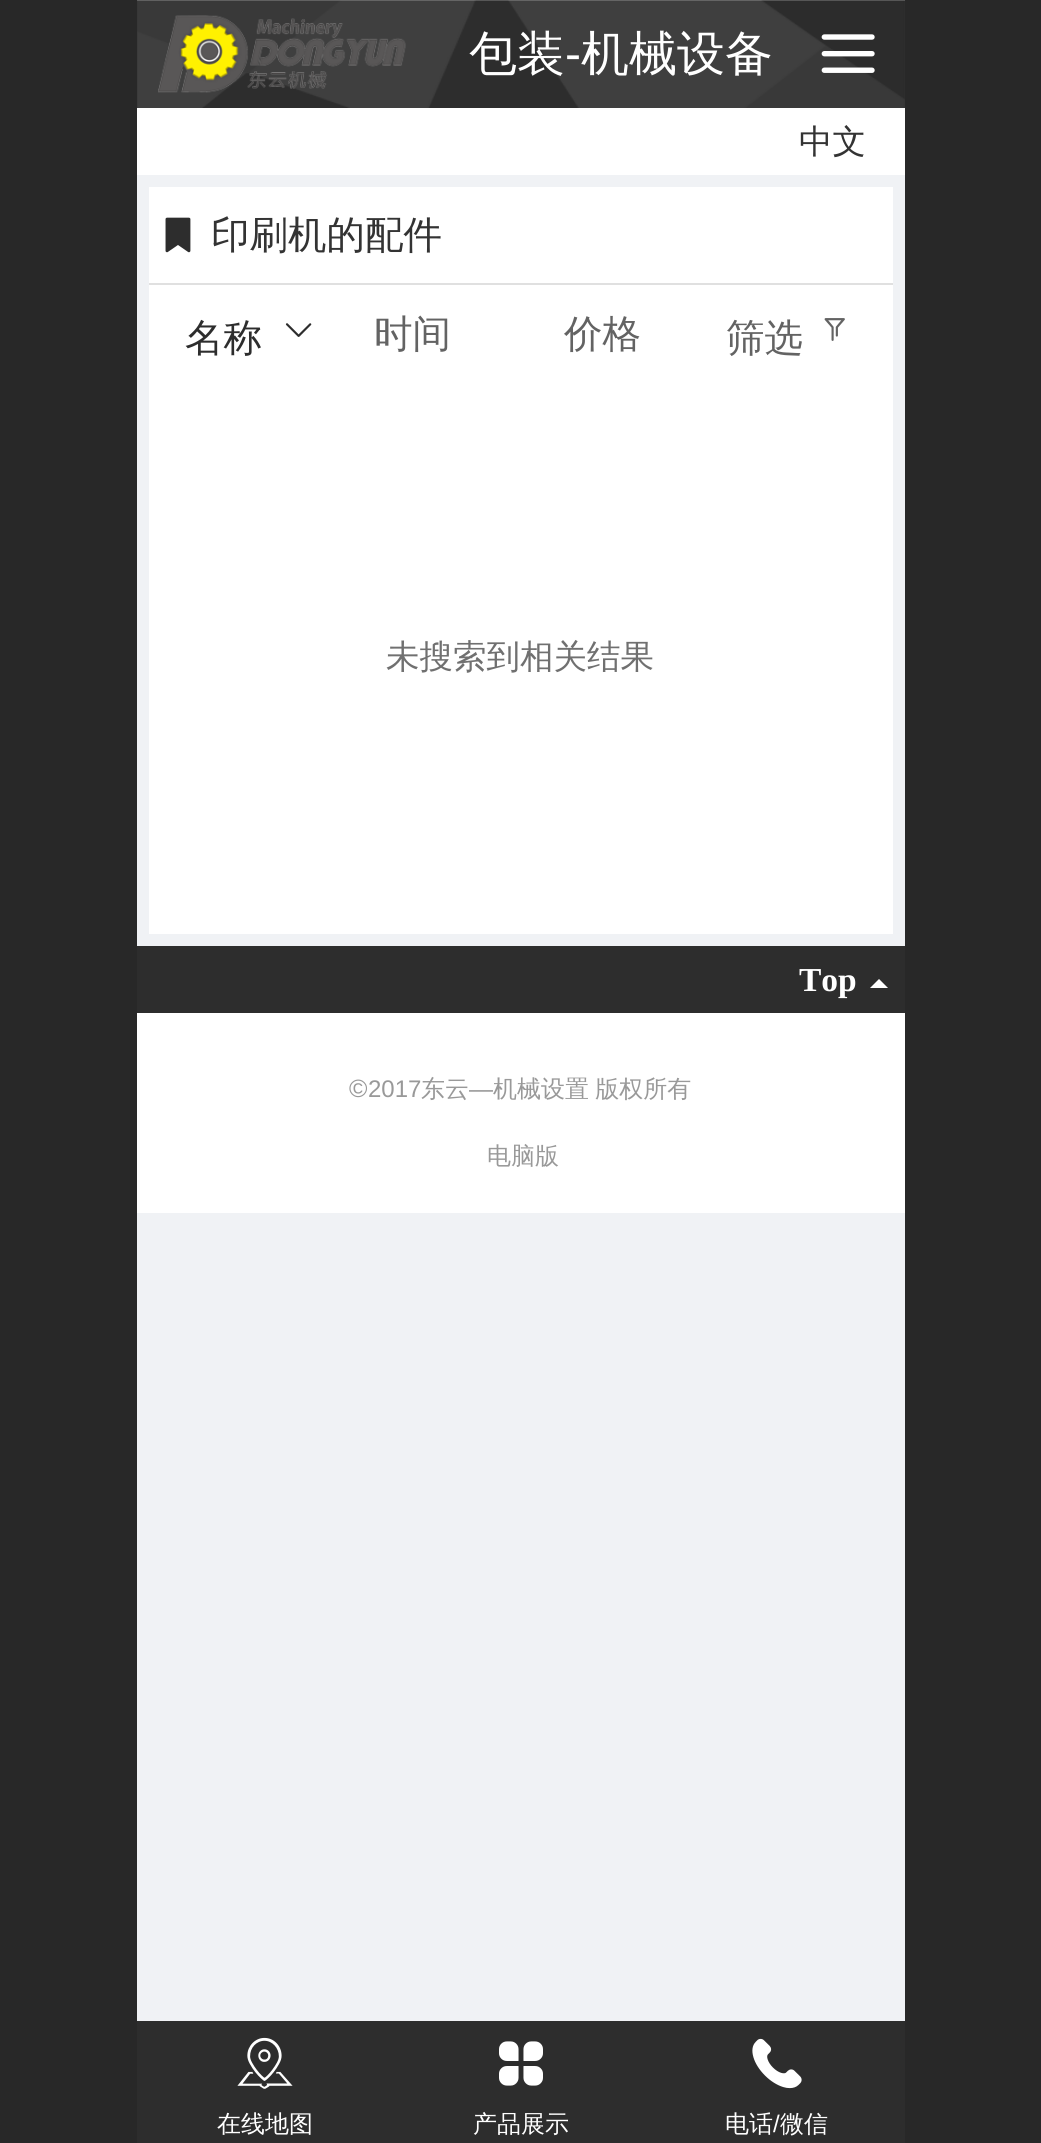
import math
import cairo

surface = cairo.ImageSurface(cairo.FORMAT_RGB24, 1041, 2143)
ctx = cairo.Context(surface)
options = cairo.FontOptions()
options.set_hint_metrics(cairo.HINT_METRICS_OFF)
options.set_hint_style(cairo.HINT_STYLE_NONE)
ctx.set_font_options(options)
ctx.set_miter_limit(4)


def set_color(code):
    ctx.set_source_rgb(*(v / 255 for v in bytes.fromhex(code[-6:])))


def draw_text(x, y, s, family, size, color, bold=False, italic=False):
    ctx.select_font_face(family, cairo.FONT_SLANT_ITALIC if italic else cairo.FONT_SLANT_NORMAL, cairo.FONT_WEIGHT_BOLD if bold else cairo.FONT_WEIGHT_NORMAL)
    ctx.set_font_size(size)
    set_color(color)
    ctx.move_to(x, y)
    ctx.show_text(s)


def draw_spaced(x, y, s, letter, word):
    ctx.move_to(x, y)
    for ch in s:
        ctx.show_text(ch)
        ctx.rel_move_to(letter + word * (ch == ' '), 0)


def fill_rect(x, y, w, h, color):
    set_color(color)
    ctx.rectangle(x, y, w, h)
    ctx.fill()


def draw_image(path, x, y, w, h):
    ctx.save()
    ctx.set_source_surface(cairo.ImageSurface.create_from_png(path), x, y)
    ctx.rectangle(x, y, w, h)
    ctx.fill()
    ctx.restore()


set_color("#f0f2f5")
ctx.paint()
fill_rect(0, 0, 137, 2143, "#282828")
fill_rect(137, 0, 768, 108, "#2d2d2d")
draw_image("assets/img1.png", 137, 0, 768, 108)
ctx.set_source_rgba(1, 1, 1, 0.2)
ctx.rectangle(137, 0, 768, 1)
ctx.fill()
draw_image("assets/img2.png", 158, 15, 248, 78)
draw_text(469, 70, "包装", "WenQuanYi Zen Hei Medium", 48, "#ffffff")
draw_text(565, 70, "-", "Liberation Sans", 48, "#ffffff")
draw_text(581, 70, "机械设备", "WenQuanYi Zen Hei Medium", 48, "#ffffff")
draw_image("assets/img3.png", 821, 34, 54, 39)
fill_rect(137, 108, 768, 67, "#ffffff")
draw_text(799, 153, "中文", "WenQuanYi Zen Hei Medium", 33.5, "#333333")
fill_rect(149, 187, 744, 96, "#ffffff")
fill_rect(149, 283, 744, 2, "#e0e0e0")
draw_image("assets/img4.png", 165, 217, 26, 36)
draw_text(211, 248, "印刷机的配件", "WenQuanYi Zen Hei Medium", 38.5, "#333333")
fill_rect(149, 285, 744, 649, "#ffffff")
draw_text(185, 351, "名称", "WenQuanYi Zen Hei Medium", 38.5, "#2d2d2d")
draw_image("assets/img5.png", 285, 323, 27, 14)
draw_text(374, 347, "时间", "WenQuanYi Zen Hei Medium", 38.5, "#636363")
draw_text(564, 347, "价格", "WenQuanYi Zen Hei Medium", 38.5, "#636363")
draw_text(726, 351, "筛选", "WenQuanYi Zen Hei Medium", 38.5, "#636363")
draw_image("assets/img6.png", 824, 318, 21, 23)
draw_text(386, 668, "未搜索到相关结果", "WenQuanYi Zen Hei Medium", 33.5, "#707070")
fill_rect(137, 1013, 768, 200, "#ffffff")
fill_rect(137, 946, 768, 67, "#2d2d2d")
draw_text(799, 991, "Top", "Liberation Serif", 33.5, "#ffffff", bold=True)
ctx.new_path()
ctx.move_to(888, 988)
ctx.line_to(870, 988)
ctx.line_to(879, 979)
ctx.close_path()
ctx.fill()
draw_text(349, 1097, "©", "Liberation Sans", 25, "#999999")
draw_text(368, 1097, "2017", "Liberation Sans", 24, "#999999")
draw_text(421, 1097, "东云", "WenQuanYi Zen Hei Medium", 24, "#999999")
draw_text(469, 1097, "—", "Liberation Sans", 24, "#999999")
ctx.select_font_face("WenQuanYi Zen Hei Medium")
draw_spaced(493, 1097, "机械设置 版权所有", 0, -1)
draw_text(487, 1164, "电脑版", "WenQuanYi Zen Hei Medium", 24, "#999999")
fill_rect(137, 2021, 768, 122, "#2d2d2d")
draw_image("assets/img7.png", 237, 2037, 56, 52)
draw_text(217, 2132, "在线地图", "WenQuanYi Zen Hei Medium", 24, "#ffffff")
draw_image("assets/img8.png", 499, 2041, 44, 45)
draw_text(473, 2132, "产品展示", "WenQuanYi Zen Hei Medium", 24, "#ffffff")
draw_image("assets/img9.png", 752, 2038, 50, 51)
draw_text(725, 2132, "电话", "WenQuanYi Zen Hei Medium", 24, "#ffffff")
draw_text(773, 2132, "/", "Liberation Sans", 24, "#ffffff")
draw_text(780, 2132, "微信", "WenQuanYi Zen Hei Medium", 24, "#ffffff")
fill_rect(905, 0, 136, 2143, "#282828")
surface.write_to_png("output.png")
